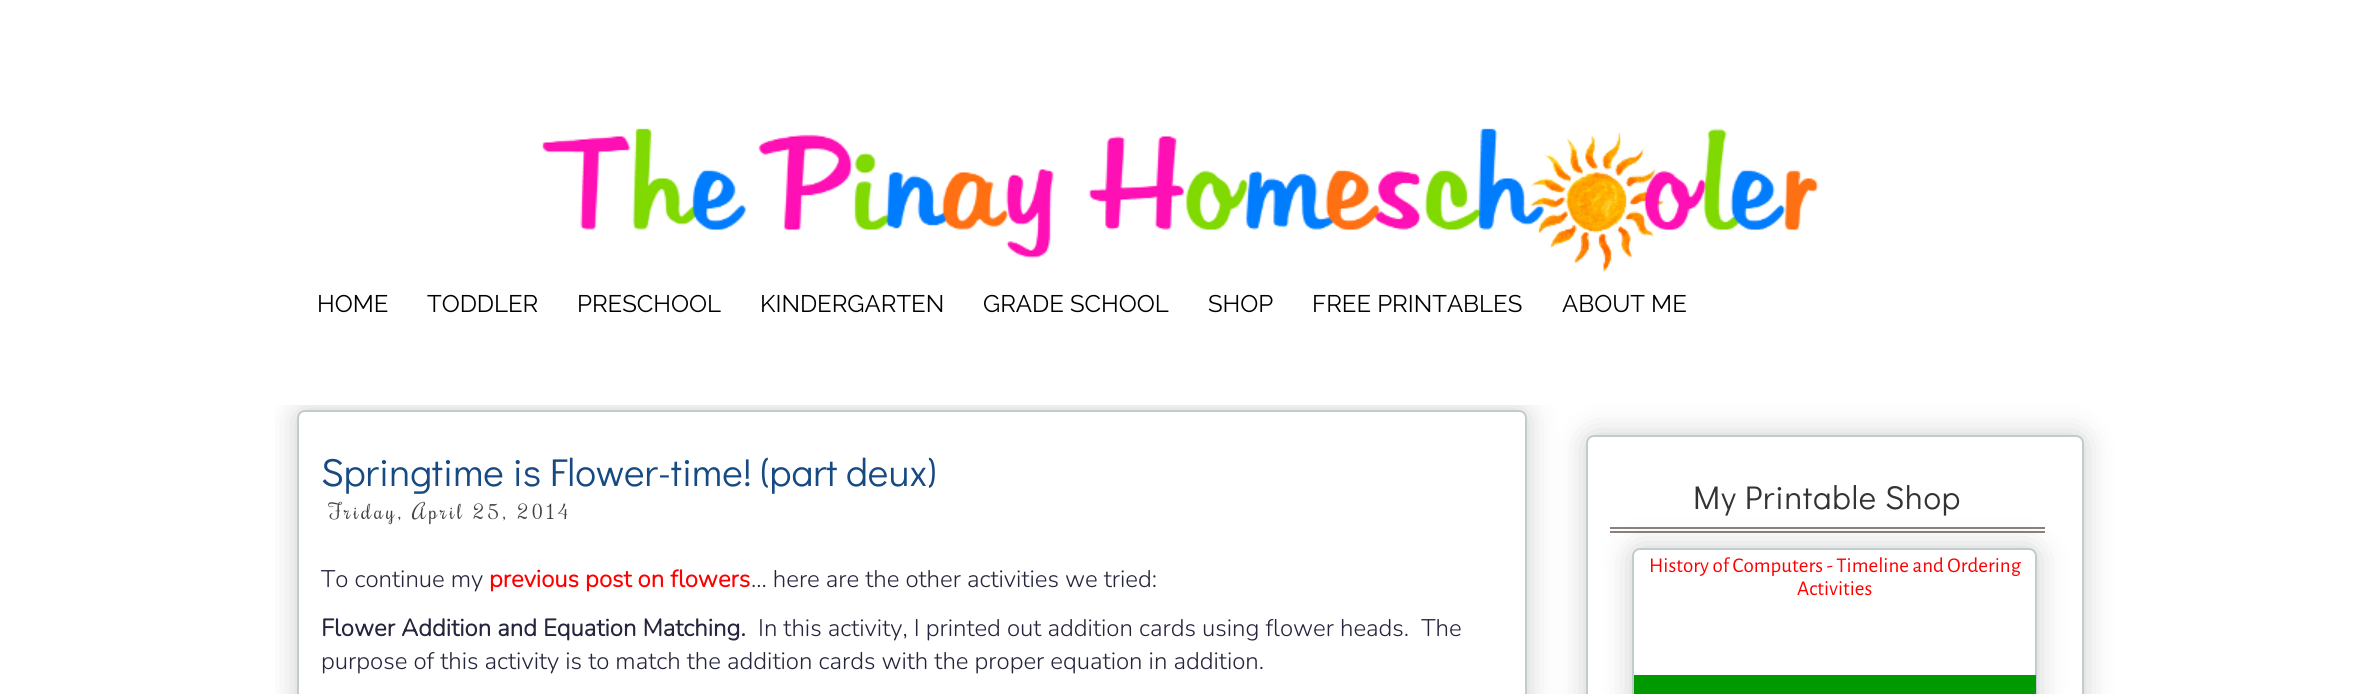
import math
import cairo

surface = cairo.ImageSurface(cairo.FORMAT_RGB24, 2378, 694)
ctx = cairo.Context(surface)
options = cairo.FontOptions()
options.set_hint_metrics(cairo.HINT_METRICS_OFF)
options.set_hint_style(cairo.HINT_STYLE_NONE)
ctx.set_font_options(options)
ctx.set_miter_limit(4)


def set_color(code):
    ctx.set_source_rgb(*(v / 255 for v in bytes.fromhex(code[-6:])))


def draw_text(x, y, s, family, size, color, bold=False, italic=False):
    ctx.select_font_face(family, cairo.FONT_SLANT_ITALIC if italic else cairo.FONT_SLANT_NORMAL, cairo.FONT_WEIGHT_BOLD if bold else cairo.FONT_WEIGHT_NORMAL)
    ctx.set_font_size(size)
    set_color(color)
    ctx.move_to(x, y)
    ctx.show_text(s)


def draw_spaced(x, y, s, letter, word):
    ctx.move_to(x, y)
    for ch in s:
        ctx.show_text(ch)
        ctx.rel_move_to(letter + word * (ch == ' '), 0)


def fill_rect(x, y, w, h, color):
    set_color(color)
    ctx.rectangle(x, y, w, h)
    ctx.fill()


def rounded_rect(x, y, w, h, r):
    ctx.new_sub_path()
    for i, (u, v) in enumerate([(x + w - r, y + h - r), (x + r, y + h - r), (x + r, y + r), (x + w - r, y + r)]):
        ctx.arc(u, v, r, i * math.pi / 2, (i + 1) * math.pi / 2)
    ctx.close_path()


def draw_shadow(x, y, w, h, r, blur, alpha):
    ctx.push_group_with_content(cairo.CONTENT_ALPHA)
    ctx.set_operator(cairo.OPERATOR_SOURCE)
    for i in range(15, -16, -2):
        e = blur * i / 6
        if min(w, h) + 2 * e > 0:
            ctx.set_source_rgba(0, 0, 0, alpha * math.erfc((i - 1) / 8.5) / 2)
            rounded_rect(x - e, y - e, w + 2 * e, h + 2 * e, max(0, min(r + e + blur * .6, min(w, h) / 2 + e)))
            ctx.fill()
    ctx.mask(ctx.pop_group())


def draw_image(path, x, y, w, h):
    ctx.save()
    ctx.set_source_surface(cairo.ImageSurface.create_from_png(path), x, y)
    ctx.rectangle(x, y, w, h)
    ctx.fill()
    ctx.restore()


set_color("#ffffff")
ctx.paint()
draw_image("assets/img1.png", 541, 128, 1278, 144)
draw_text(317, 312, "HOME", "Raleway Thin", 24, "#000000")
draw_text(427, 312, "TODDLER", "Raleway Thin", 24, "#000000")
draw_text(577, 312, "PRESCHOOL", "Raleway Thin", 24, "#000000")
draw_text(760, 312, "KINDERGARTEN", "Raleway Thin", 24, "#000000")
draw_text(983, 312, "GRADE SCHOOL", "Raleway Thin", 24, "#000000")
draw_text(1208, 312, "SHOP", "Raleway Thin", 24, "#000000")
draw_text(1312, 312, "FREE PRINTABLES", "Raleway Thin", 24, "#000000")
draw_text(1562, 312, "ABOUT ME", "Raleway Thin", 24, "#000000")
ctx.save()
ctx.rectangle(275, 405, 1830, 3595)
ctx.clip()
set_color("#000000")
draw_shadow(297, 410, 1230, 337, 8, 15, 0.2)
ctx.restore()
set_color("#ffffff")
rounded_rect(298, 411, 1228, 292, 7)
ctx.fill_preserve()
set_color("#c1cdcd")
ctx.stroke()
draw_text(321, 486, "Springtime is Flower-time! (part deux)", "Didact Gothic", 39, "#174a82")
ctx.select_font_face("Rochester")
ctx.set_font_size(21)
set_color("#424242")
draw_spaced(329, 519, "Friday, April 25, 2014", 3, 0)
draw_text(321, 587, "To continue my", "Nunito ExtraLight", 24, "#25253d")
draw_text(489, 587, "previous post on flowers", "Nunito", 24, "#ff0000", bold=True)
draw_text(751, 587, "... here are the other activities we tried:", "Nunito ExtraLight", 24, "#25253d")
draw_text(321, 636, "Flower Addition and Equation Matching.", "Nunito", 24, "#25253d", bold=True)
draw_text(758, 636, "In this activity, I printed out addition cards using flower heads.  The", "Nunito ExtraLight", 24, "#25253d")
draw_text(321, 669, "purpose of this activity is to match the addition cards with the proper equation in addition.", "Nunito ExtraLight", 24, "#25253d")
set_color("#000000")
draw_shadow(1586, 435, 498, 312, 8, 15, 0.2)
set_color("#ffffff")
rounded_rect(1587, 436, 496, 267, 7)
ctx.fill_preserve()
set_color("#c1cdcd")
ctx.stroke()
fill_rect(1610, 527, 435, 2, "#8b817e")
fill_rect(1610, 531, 435, 2, "#8b817e")
ctx.select_font_face("Didact Gothic")
ctx.set_font_size(33)
set_color("#333333")
draw_spaced(1693, 509, "My Printable Shop", 0.75, 0)
set_color("#000000")
draw_shadow(1632, 548, 405, 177, 8, 15, 0.2)
set_color("#ffffff")
rounded_rect(1633, 549, 403, 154, 7)
ctx.fill_preserve()
set_color("#c1cdcd")
ctx.stroke()
draw_text(1649, 572, "History of Computers - Timeline and Ordering", "Alegreya Sans", 21, "#ff0000")
draw_text(1797, 595, "Activities", "Alegreya Sans", 21, "#ff0000")
fill_rect(1634, 675, 402, 19, "#009900")
surface.write_to_png("output.png")
